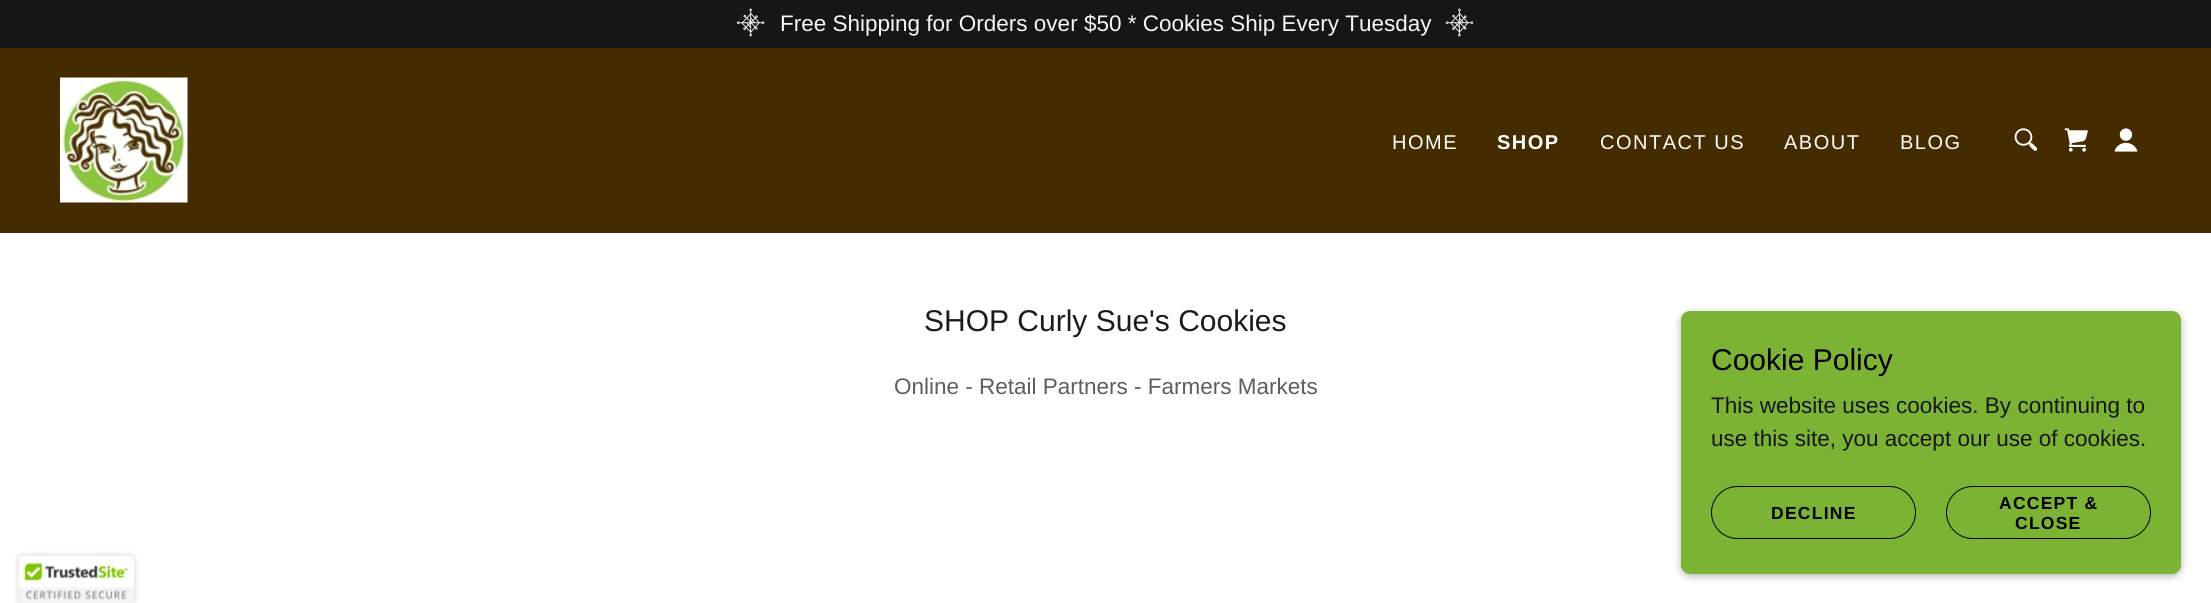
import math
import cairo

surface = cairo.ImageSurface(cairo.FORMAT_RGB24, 2211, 603)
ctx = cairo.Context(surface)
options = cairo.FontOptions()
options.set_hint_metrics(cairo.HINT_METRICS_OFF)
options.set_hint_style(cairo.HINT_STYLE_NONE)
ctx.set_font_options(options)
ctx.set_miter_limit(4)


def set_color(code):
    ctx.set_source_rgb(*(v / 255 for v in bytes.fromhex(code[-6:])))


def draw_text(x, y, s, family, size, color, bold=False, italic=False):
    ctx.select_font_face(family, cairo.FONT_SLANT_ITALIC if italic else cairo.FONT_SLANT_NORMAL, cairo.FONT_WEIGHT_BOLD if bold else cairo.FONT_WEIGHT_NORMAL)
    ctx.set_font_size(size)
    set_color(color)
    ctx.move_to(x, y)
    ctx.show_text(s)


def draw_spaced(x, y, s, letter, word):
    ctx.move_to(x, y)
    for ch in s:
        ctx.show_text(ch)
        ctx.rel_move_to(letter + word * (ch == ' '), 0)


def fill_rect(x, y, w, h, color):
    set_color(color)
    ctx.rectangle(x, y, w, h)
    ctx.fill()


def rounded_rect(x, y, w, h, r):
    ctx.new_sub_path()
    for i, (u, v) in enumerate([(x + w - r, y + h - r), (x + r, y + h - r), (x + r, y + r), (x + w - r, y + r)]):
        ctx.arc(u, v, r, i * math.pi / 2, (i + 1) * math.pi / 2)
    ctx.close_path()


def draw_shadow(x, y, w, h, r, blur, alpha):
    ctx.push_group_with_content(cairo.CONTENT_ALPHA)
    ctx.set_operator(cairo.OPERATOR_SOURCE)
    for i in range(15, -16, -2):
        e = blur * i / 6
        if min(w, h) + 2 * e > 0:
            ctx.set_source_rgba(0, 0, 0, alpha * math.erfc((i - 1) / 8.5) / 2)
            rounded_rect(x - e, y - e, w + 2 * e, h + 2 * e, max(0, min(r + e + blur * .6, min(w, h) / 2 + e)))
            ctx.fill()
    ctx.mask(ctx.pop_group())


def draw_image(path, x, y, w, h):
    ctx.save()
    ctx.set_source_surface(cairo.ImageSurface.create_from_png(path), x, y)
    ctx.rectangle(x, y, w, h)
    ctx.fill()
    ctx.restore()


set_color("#452c00")
ctx.paint()
fill_rect(0, 0, 2211, 48, "#161616")
draw_image("assets/img1.png", 736, 8, 29, 29)
draw_text(780, 31, "Free Shipping for Orders over $50 * Cookies Ship Every Tuesday", "Liberation Sans", 22.5, "#f7f7f7")
draw_image("assets/img2.png", 1445, 8, 29, 29)
draw_image("assets/img3.png", 60, 77, 128, 126)
ctx.set_font_size(20)
set_color("#ffffff")
draw_spaced(1392, 149, "HOME", 1.5, 0)
ctx.select_font_face("Liberation Sans", cairo.FONT_SLANT_NORMAL, cairo.FONT_WEIGHT_BOLD)
draw_spaced(1497, 149, "SHOP", 1.5, 0)
ctx.select_font_face("Liberation Sans")
draw_spaced(1600, 149, "CONTACT US", 1.5, 0)
draw_spaced(1784, 149, "ABOUT", 1.5, 0)
draw_spaced(1900, 149, "BLOG", 1.5, 0)
draw_image("assets/img4.png", 2014, 128, 24, 23)
draw_image("assets/img5.png", 2064, 128, 24, 24)
draw_image("assets/img6.png", 2114, 128, 24, 24)
fill_rect(0, 233, 2211, 370, "#ffffff")
draw_text(924, 331, "SHOP Curly Sue's Cookies", "Liberation Sans", 30, "#1b1b1b")
draw_text(894, 394, "Online - Retail Partners - Farmers Markets", "Liberation Sans", 22.5, "#5e5e5e")
set_color("#000000")
draw_shadow(1681, 314, 500, 262, 9, 4, 0.3)
set_color("#7cb334")
rounded_rect(1681, 311, 500, 263, 9)
ctx.fill()
draw_text(1711, 370, "Cookie Policy", "Liberation Sans", 30, "#000000")
draw_text(1711, 413, "This website uses cookies. By continuing to", "Liberation Sans", 22.5, "#151614")
draw_text(1711, 446, "use this site, you accept our use of cookies.", "Liberation Sans", 22.5, "#151614")
rounded_rect(1711.5, 486.5, 204, 52, 26)
set_color("#000000")
ctx.set_line_width(1)
ctx.stroke()
ctx.select_font_face("Liberation Sans", cairo.FONT_SLANT_NORMAL, cairo.FONT_WEIGHT_BOLD)
ctx.set_font_size(17.5)
draw_spaced(1771, 519, "DECLINE", 1.25, 0)
rounded_rect(1946.5, 486.5, 204, 52, 26)
ctx.stroke()
draw_spaced(1999, 509, "ACCEPT &", 1.25, 0)
draw_spaced(2015, 529, "CLOSE", 1.25, 0)
set_color("#000000")
draw_shadow(19, 556, 115, 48, 2.5, 3, 0.2)
set_color("#ffffff")
ctx.new_path()
ctx.move_to(21.5, 556)
ctx.line_to(131.5, 556)
ctx.curve_to(133, 556, 134, 557, 134, 558.5)
ctx.line_to(134, 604)
ctx.line_to(19, 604)
ctx.line_to(19, 558.5)
ctx.curve_to(19, 557, 20, 556, 21.5, 556)
ctx.close_path()
ctx.fill()
draw_image("assets/img7.png", 18, 562, 116, 41)
surface.write_to_png("output.png")
